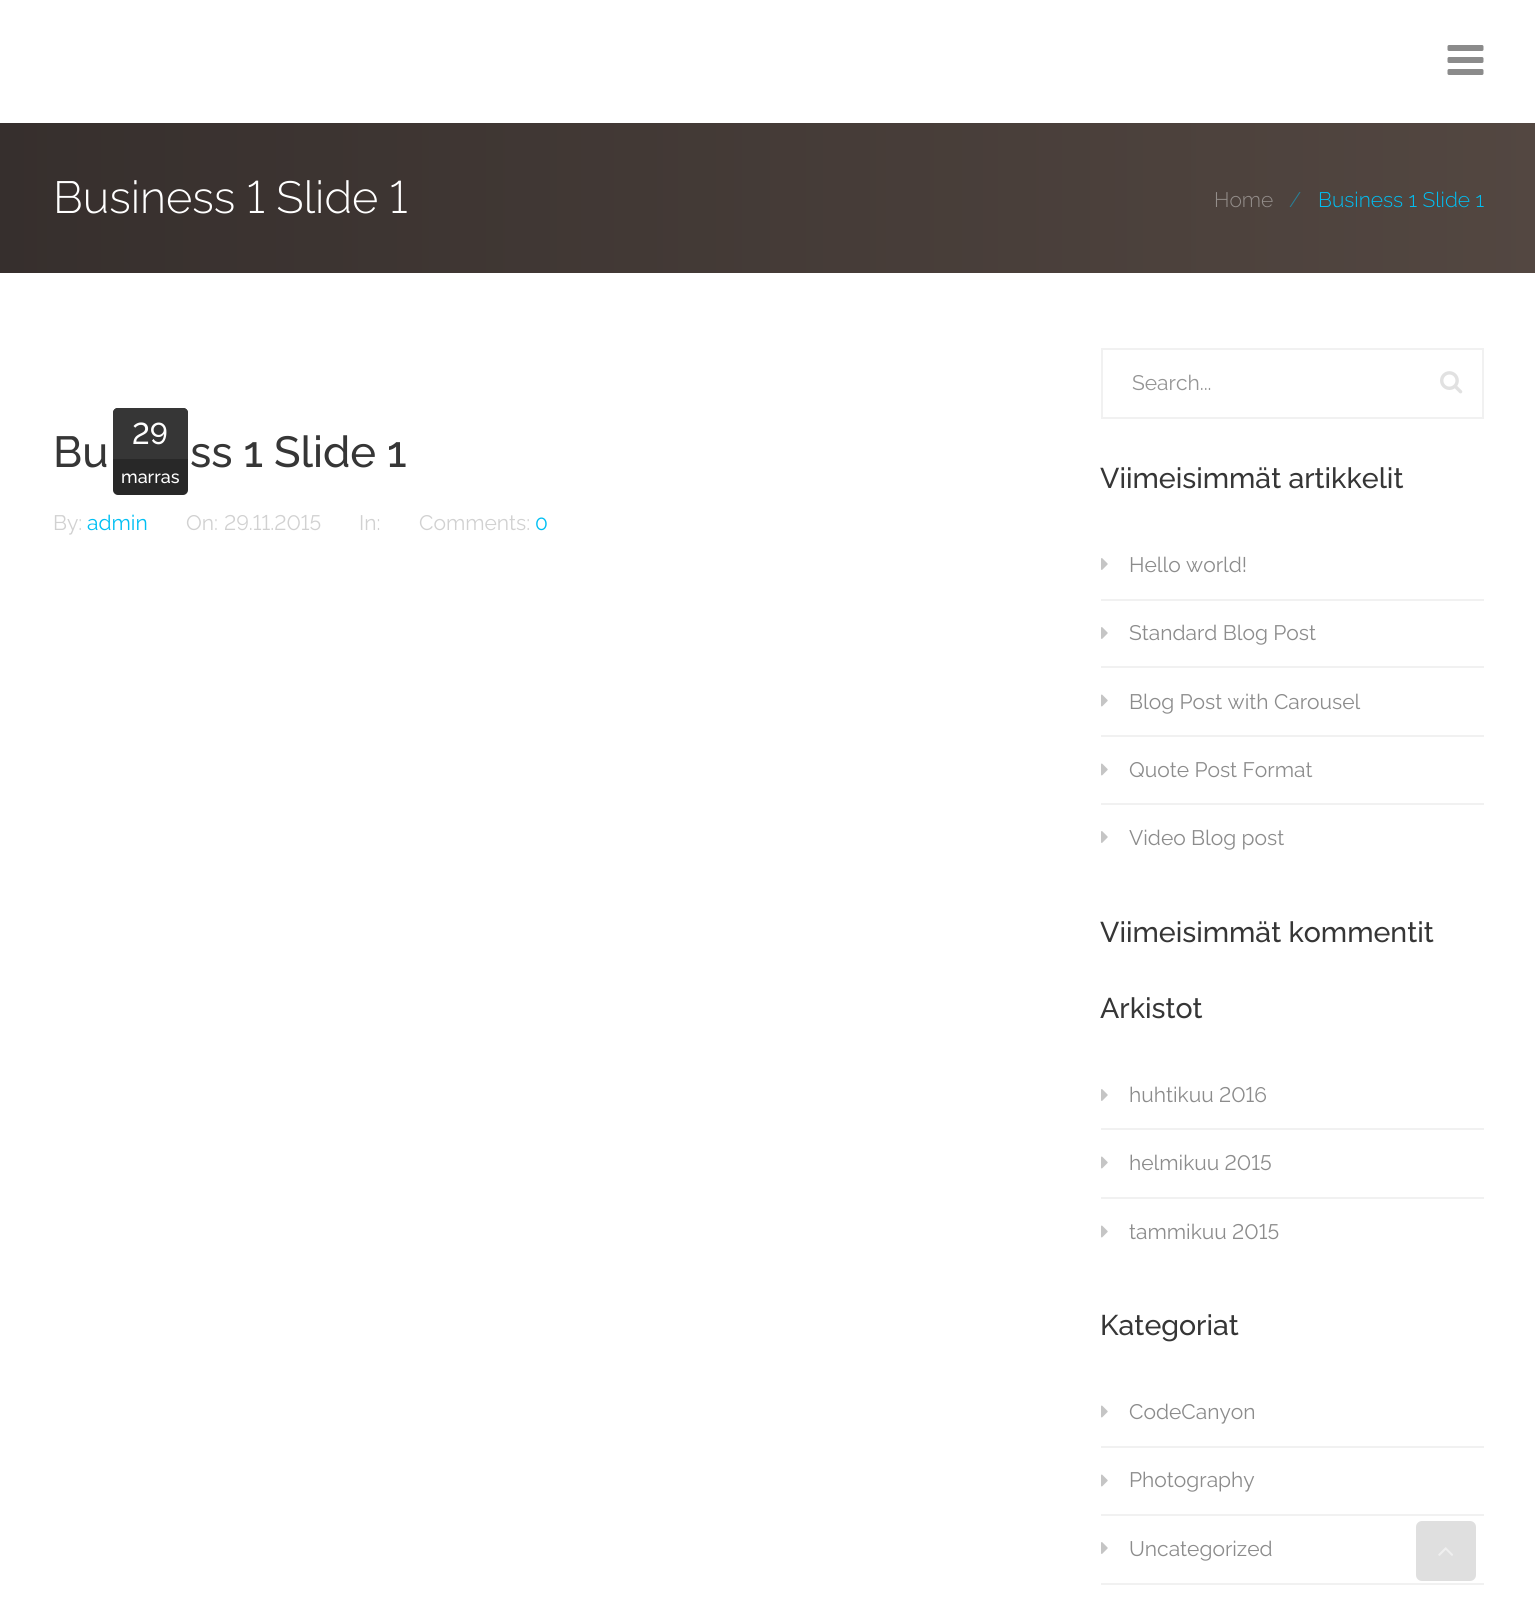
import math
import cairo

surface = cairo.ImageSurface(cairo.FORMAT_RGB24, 1535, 1610)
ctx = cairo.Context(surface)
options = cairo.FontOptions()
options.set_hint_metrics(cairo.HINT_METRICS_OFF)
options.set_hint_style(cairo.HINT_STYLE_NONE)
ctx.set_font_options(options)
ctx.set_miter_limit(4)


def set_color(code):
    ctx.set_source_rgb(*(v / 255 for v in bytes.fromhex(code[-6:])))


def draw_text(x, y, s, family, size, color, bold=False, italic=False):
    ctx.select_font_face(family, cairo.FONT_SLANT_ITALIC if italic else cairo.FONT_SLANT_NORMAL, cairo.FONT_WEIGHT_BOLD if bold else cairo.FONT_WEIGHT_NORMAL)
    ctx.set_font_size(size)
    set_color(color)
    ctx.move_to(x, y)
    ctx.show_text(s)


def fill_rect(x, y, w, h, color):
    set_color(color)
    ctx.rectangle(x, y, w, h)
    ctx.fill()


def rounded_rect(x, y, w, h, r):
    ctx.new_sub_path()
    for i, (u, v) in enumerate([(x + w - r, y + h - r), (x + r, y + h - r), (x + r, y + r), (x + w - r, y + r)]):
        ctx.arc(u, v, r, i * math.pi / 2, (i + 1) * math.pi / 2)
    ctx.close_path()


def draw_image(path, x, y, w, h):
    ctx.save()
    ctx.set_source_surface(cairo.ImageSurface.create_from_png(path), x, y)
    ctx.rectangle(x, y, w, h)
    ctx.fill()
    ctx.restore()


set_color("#ffffff")
ctx.paint()
draw_image("assets/img1.png", 1447, 45, 37, 30)
gradient = cairo.LinearGradient(0, 198, 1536, 198)
gradient.add_color_stop_rgba(0, 0.212, 0.184, 0.176, 1)
gradient.add_color_stop_rgba(1, 0.325, 0.278, 0.255, 1)
ctx.set_source(gradient)
ctx.rectangle(0, 123, 1535, 150)
ctx.fill()
draw_text(53, 213, "Business 1 Slide 1", "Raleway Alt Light", 45, "#ffffff")
draw_text(1214, 207, "Home", "Raleway Light", 21, "#948e8b")
draw_text(1289, 207, "/", "Raleway Light", 21, "#278199")
draw_text(1318, 207, "Business 1 Slide 1", "Raleway Light", 21, "#00bff3")
set_color("#363636")
rounded_rect(113, 408, 75, 87, 5)
ctx.fill()
ctx.set_source_rgba(0, 0, 0, 0.25)
rounded_rect(113, 408, 75, 87, 6)
ctx.fill()
set_color("#363636")
ctx.new_path()
ctx.move_to(118, 408)
ctx.line_to(183, 408)
ctx.curve_to(186, 408, 188, 410, 188, 413)
ctx.line_to(188, 459)
ctx.line_to(113, 459)
ctx.line_to(113, 413)
ctx.curve_to(113, 410, 115, 408, 118, 408)
ctx.close_path()
ctx.fill()
draw_text(132, 444, "29", "Raleway Alt Medium", 30, "#ffffff")
draw_text(121, 483, "marras", "Raleway Medium", 18, "#ffffff")
draw_text(53, 467, "Bu", "Raleway Medium", 43.5, "#363636")
draw_text(190, 467, "ss 1 Slide 1", "Raleway Medium", 43.5, "#363636")
draw_text(53, 530, "By:", "Raleway", 21, "#d1d1d1")
draw_text(87, 530, "admin", "Raleway", 21, "#00bff3")
draw_text(186, 530, "On:", "Raleway", 21, "#d1d1d1")
draw_text(224, 530, "29.11.2015", "Raleway Alt", 21, "#d1d1d1")
draw_text(359, 530, "In:", "Raleway", 21, "#d1d1d1")
draw_text(419, 530, "Comments:", "Raleway", 21, "#d1d1d1")
draw_text(535, 530, "0", "Raleway", 21, "#00bff3")
ctx.rectangle(1102, 349, 381, 69)
set_color("#f1f1f1")
ctx.stroke()
draw_text(1132, 390, "Search...", "Raleway", 21, "#959595")
draw_image("assets/img2.png", 1440, 371, 23, 23)
draw_text(1100, 488, "Viimeisimmät artikkelit", "Raleway Medium", 28.5, "#363636")
fill_rect(1101, 599, 383, 2, "#f1f1f1")
draw_image("assets/img3.png", 1101, 558, 7, 12)
draw_text(1129, 572, "Hello world!", "Raleway", 21, "#8c8c8c")
fill_rect(1101, 666, 383, 2, "#f1f1f1")
draw_image("assets/img3.png", 1101, 627, 7, 12)
draw_text(1129, 640, "Standard Blog Post", "Raleway", 21, "#8c8c8c")
fill_rect(1101, 735, 383, 2, "#f1f1f1")
draw_image("assets/img4.png", 1101, 694, 7, 13)
draw_text(1129, 709, "Blog Post with Carousel", "Raleway", 21, "#8c8c8c")
fill_rect(1101, 803, 383, 2, "#f1f1f1")
draw_image("assets/img4.png", 1101, 763, 7, 13)
draw_text(1129, 777, "Quote Post Format", "Raleway", 21, "#8c8c8c")
draw_image("assets/img3.png", 1101, 831, 7, 12)
draw_text(1129, 845, "Video Blog post", "Raleway", 21, "#8c8c8c")
draw_text(1100, 942, "Viimeisimmät kommentit", "Raleway Medium", 28.5, "#363636")
draw_text(1100, 1018, "Arkistot", "Raleway Medium", 28.5, "#363636")
fill_rect(1101, 1128, 383, 2, "#f1f1f1")
draw_image("assets/img3.png", 1101, 1089, 7, 12)
draw_text(1129, 1102, "huhtikuu 2016", "Raleway Alt", 21, "#8c8c8c")
fill_rect(1101, 1197, 383, 2, "#f1f1f1")
draw_image("assets/img4.png", 1101, 1156, 7, 13)
draw_text(1129, 1170, "helmikuu 2015", "Raleway Alt", 21, "#8c8c8c")
draw_image("assets/img4.png", 1101, 1225, 7, 13)
draw_text(1129, 1239, "tammikuu 2015", "Raleway Alt", 21, "#8c8c8c")
draw_text(1100, 1335, "Kategoriat", "Raleway Medium", 28.5, "#363636")
fill_rect(1101, 1446, 383, 2, "#f1f1f1")
draw_image("assets/img4.png", 1101, 1405, 7, 13)
draw_text(1129, 1419, "CodeCanyon", "Raleway", 21, "#8c8c8c")
fill_rect(1101, 1514, 383, 2, "#f1f1f1")
draw_image("assets/img4.png", 1101, 1474, 7, 13)
draw_text(1129, 1487, "Photography", "Raleway", 21, "#8c8c8c")
fill_rect(1101, 1583, 383, 2, "#f1f1f1")
draw_image("assets/img3.png", 1101, 1542, 7, 12)
draw_text(1129, 1556, "Uncategorized", "Raleway", 21, "#8c8c8c")
set_color("#dfdfdf")
rounded_rect(1416, 1521, 60, 60, 6)
ctx.fill()
draw_image("assets/img5.png", 1438, 1547, 15, 9)
surface.write_to_png("output.png")
